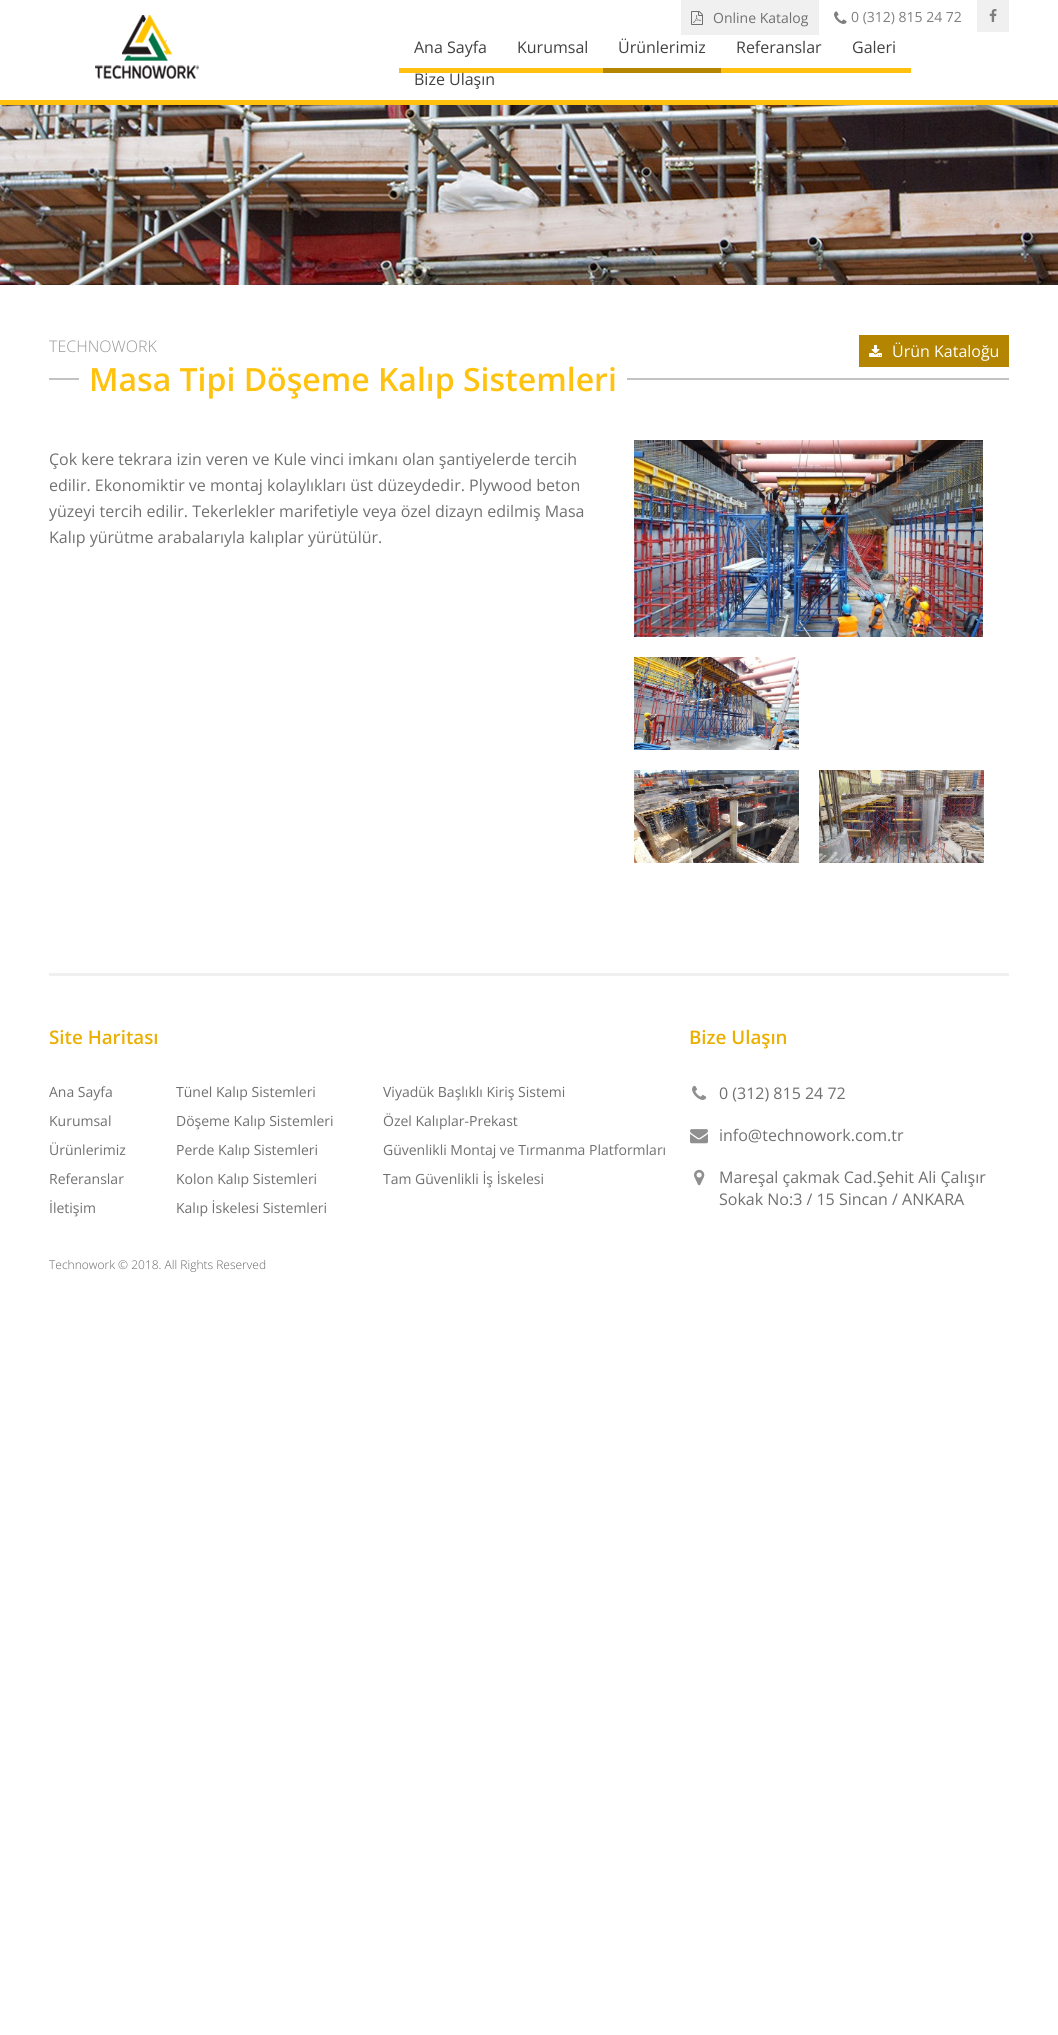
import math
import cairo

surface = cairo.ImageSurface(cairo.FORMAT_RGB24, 1058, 2035)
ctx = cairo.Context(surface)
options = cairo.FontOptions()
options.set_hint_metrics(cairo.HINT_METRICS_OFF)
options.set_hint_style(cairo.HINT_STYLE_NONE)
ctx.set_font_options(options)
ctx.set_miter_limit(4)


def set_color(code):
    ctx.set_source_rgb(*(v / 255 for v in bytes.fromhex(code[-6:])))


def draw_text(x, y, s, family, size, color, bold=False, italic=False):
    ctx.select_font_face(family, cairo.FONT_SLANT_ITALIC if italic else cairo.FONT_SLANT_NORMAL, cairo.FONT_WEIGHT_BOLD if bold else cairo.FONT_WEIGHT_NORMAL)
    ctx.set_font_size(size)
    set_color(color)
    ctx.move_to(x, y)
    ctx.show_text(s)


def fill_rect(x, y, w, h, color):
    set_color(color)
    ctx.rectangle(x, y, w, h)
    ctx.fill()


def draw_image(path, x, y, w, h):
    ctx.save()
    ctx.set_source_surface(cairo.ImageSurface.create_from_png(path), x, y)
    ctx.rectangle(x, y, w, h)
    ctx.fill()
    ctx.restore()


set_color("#ffffff")
ctx.paint()
fill_rect(0, 100, 1058, 5, "#ffc10d")
draw_image("assets/img1.png", 95, 15, 104, 64)
fill_rect(681, 0, 138, 35, "#f0f0f0")
draw_image("assets/img2.png", 691, 11, 12, 14)
draw_text(713, 23, "Online Katalog", "Open Sans", 14, "#707070")
draw_image("assets/img3.png", 834, 11, 13, 13)
draw_text(851, 22, "0 (312) 815 24 72", "Open Sans", 14, "#7f7f7f")
fill_rect(977, 0, 32, 32, "#f0f0f0")
draw_image("assets/img4.png", 989, 9, 8, 13)
draw_text(414, 53, "Ana Sayfa", "Open Sans", 16, "#414141")
fill_rect(399, 68, 204, 5, "#ffc10d")
draw_text(517, 53, "Kurumsal", "Open Sans", 16, "#414141")
draw_text(618, 53, "Ürünlerimiz", "Open Sans", 16, "#414141")
fill_rect(603, 68, 118, 5, "#b38501")
draw_text(736, 53, "Referanslar", "Open Sans", 16, "#414141")
fill_rect(721, 68, 190, 5, "#ffc10d")
draw_text(852, 53, "Galeri", "Open Sans", 16, "#414141")
draw_text(414, 85, "Bize Ulaşın", "Open Sans", 16, "#414141")
draw_image("assets/img5.png", 0, 105, 1058, 180)
draw_text(49, 352, "TECHNOWORK", "Open Sans Light", 16, "#979797")
fill_rect(859, 335, 150, 32, "#b38501")
draw_image("assets/img6.png", 869, 345, 13, 12)
draw_text(892, 357, "Ürün Kataloğu", "Open Sans", 16, "#ffffff")
fill_rect(49, 378, 960, 2, "#c3c3c3")
fill_rect(79, 378, 548, 2, "#ffffff")
draw_text(89, 391, "Masa Tipi Döşeme Kalıp Sistemleri", "Open Sans SemiBold", 32, "#ffc20e")
draw_text(49, 465, "Çok kere tekrara izin veren ve Kule vinci imkanı olan şantiyelerde tercih", "Open Sans", 16, "#707070")
draw_text(49, 491, "edilir. Ekonomiktir ve montaj kolaylıkları üst düzeydedir. Plywood beton", "Open Sans", 16, "#707070")
draw_text(49, 517, "yüzeyi tercih edilir. Tekerlekler marifetiyle veya özel dizayn edilmiş Masa", "Open Sans", 16, "#707070")
draw_text(49, 543, "Kalıp yürütme arabalarıyla kalıplar yürütülür.", "Open Sans", 16, "#707070")
draw_image("assets/img7.png", 634, 440, 349, 197)
draw_image("assets/img8.png", 634, 657, 165, 93)
draw_image("assets/img9.png", 634, 770, 165, 93)
draw_image("assets/img10.png", 819, 770, 165, 93)
fill_rect(49, 973, 960, 3, "#f0f0f0")
draw_text(49, 1044, "Site Haritası", "Open Sans SemiBold", 18.75, "#eaaf00")
draw_text(49, 1097, "Ana Sayfa", "Open Sans", 14, "#707070")
draw_text(49, 1126, "Kurumsal", "Open Sans", 14, "#707070")
draw_text(49, 1155, "Ürünlerimiz", "Open Sans", 14, "#707070")
draw_text(49, 1184, "Referanslar", "Open Sans", 14, "#707070")
draw_text(49, 1213, "İletişim", "Open Sans", 14, "#707070")
draw_text(176, 1097, "Tünel Kalıp Sistemleri", "Open Sans", 14, "#707070")
draw_text(176, 1126, "Döşeme Kalıp Sistemleri", "Open Sans", 14, "#707070")
draw_text(176, 1155, "Perde Kalıp Sistemleri", "Open Sans", 14, "#707070")
draw_text(176, 1184, "Kolon Kalıp Sistemleri", "Open Sans", 14, "#707070")
draw_text(176, 1213, "Kalıp İskelesi Sistemleri", "Open Sans", 14, "#707070")
draw_text(383, 1097, "Viyadük Başlıklı Kiriş Sistemi", "Open Sans", 14, "#707070")
draw_text(383, 1126, "Özel Kalıplar-Prekast", "Open Sans", 14, "#707070")
draw_text(383, 1155, "Güvenlikli Montaj ve Tırmanma Platformları", "Open Sans", 14, "#707070")
draw_text(383, 1184, "Tam Güvenlikli İş İskelesi", "Open Sans", 14, "#707070")
draw_text(689, 1044, "Bize Ulaşın", "Open Sans SemiBold", 18.75, "#eaaf00")
draw_image("assets/img11.png", 692, 1085, 15, 15)
draw_text(719, 1099, "0 (312) 815 24 72", "Open Sans", 16, "#707070")
draw_image("assets/img12.png", 690, 1129, 18, 15)
draw_text(719, 1141, "info@technowork.com.tr", "Open Sans", 16, "#707070")
draw_image("assets/img13.png", 694, 1169, 11, 17)
draw_text(719, 1183, "Mareşal çakmak Cad.Şehit Ali Çalışır", "Open Sans", 16, "#707070")
draw_text(719, 1205, "Sokak No:3 / 15 Sincan / ANKARA", "Open Sans", 16, "#707070")
draw_text(49, 1269, "Technowork © 2018. All Rights Reserved", "Open Sans Light", 12, "#666666")
surface.write_to_png("output.png")
